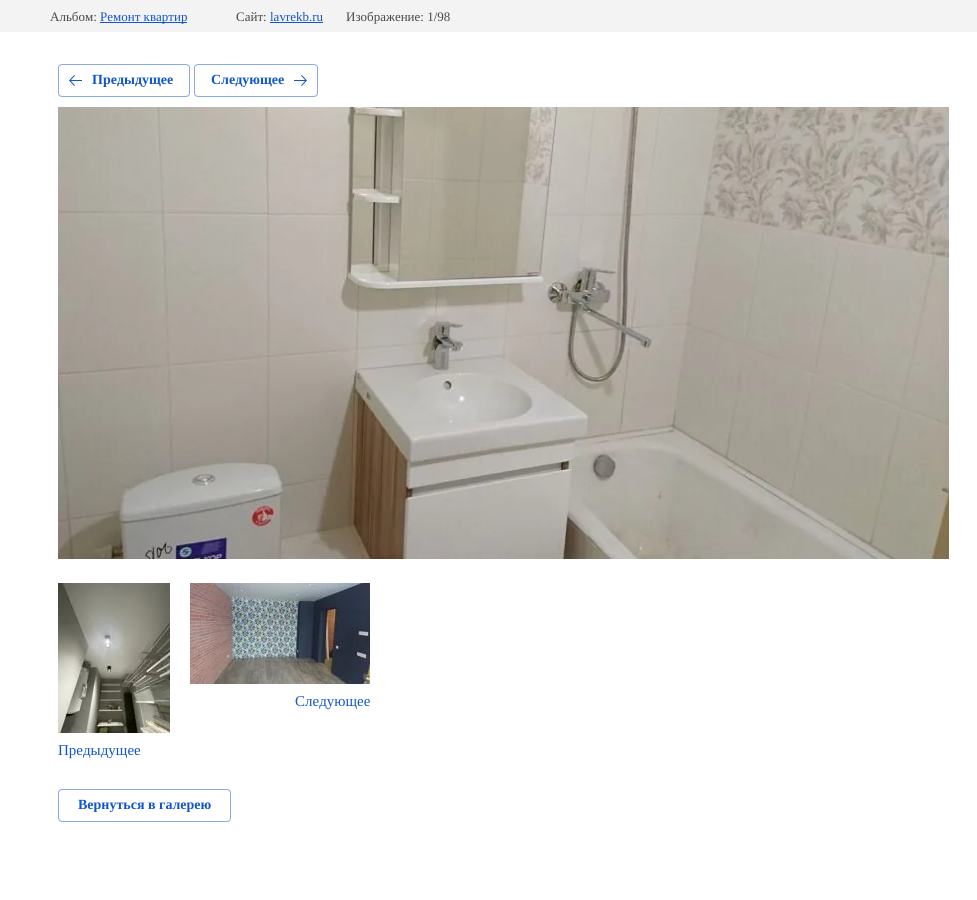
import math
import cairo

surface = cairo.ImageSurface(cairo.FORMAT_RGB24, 977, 900)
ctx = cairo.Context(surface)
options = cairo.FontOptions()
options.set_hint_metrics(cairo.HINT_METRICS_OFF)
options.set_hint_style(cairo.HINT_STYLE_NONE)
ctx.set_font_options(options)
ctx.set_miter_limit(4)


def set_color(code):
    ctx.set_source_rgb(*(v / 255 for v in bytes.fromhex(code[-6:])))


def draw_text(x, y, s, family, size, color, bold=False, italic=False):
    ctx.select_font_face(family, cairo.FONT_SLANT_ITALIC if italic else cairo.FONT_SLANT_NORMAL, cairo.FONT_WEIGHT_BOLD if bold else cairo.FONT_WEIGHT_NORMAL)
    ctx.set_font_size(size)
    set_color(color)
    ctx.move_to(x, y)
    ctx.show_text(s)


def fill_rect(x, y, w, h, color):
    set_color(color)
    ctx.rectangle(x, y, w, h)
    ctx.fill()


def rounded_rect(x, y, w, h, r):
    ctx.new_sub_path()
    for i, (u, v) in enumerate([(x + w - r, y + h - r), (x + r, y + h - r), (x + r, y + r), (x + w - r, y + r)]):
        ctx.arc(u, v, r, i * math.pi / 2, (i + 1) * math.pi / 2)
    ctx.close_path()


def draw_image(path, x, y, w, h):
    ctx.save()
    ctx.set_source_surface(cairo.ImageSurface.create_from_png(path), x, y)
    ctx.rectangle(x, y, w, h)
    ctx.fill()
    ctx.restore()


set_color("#ffffff")
ctx.paint()
fill_rect(0, 0, 977, 32, "#f3f3f3")
draw_text(50, 21, "Альбом:", "Liberation Serif", 13, "#484848")
fill_rect(100, 22, 87, 1, "#1155cc")
draw_text(100, 21, "Ремонт квартир", "Liberation Serif", 13, "#1155cc")
draw_text(236, 21, "Сайт:", "Liberation Serif", 13, "#484848")
draw_text(270, 21, "lavrekb.ru", "Liberation Serif", 13, "#1155cc")
fill_rect(270, 22, 53, 1, "#1155cc")
draw_text(346, 21, "Изображение: 1/98", "Liberation Serif", 13, "#484848")
rounded_rect(58.5, 64.5, 131, 32, 3.5)
set_color("#88aae6")
ctx.set_line_width(1)
ctx.stroke()
draw_image("assets/img1.png", 69, 75, 13, 11)
draw_text(92, 84, "Предыдущее", "Liberation Serif", 14, "#1155cc", bold=True)
rounded_rect(194.5, 64.5, 123, 32, 3.5)
set_color("#88aae6")
ctx.stroke()
draw_text(211, 84, "Следующее", "Liberation Serif", 14, "#1155cc", bold=True)
draw_image("assets/img2.png", 294, 75, 13, 11)
draw_image("assets/img3.png", 58, 107, 891, 452)
draw_image("assets/img4.png", 190, 583, 180, 101)
draw_text(295, 706, "Следующее", "Liberation Serif", 15, "#1155cc")
draw_image("assets/img5.png", 58, 583, 112, 150)
draw_text(58, 755, "Предыдущее", "Liberation Serif", 15, "#1155cc")
rounded_rect(58.5, 789.5, 172, 32, 3.5)
set_color("#88aae6")
ctx.stroke()
draw_text(78, 809, "Вернуться в галерею", "Liberation Serif", 14, "#1155cc", bold=True)
surface.write_to_png("output.png")
